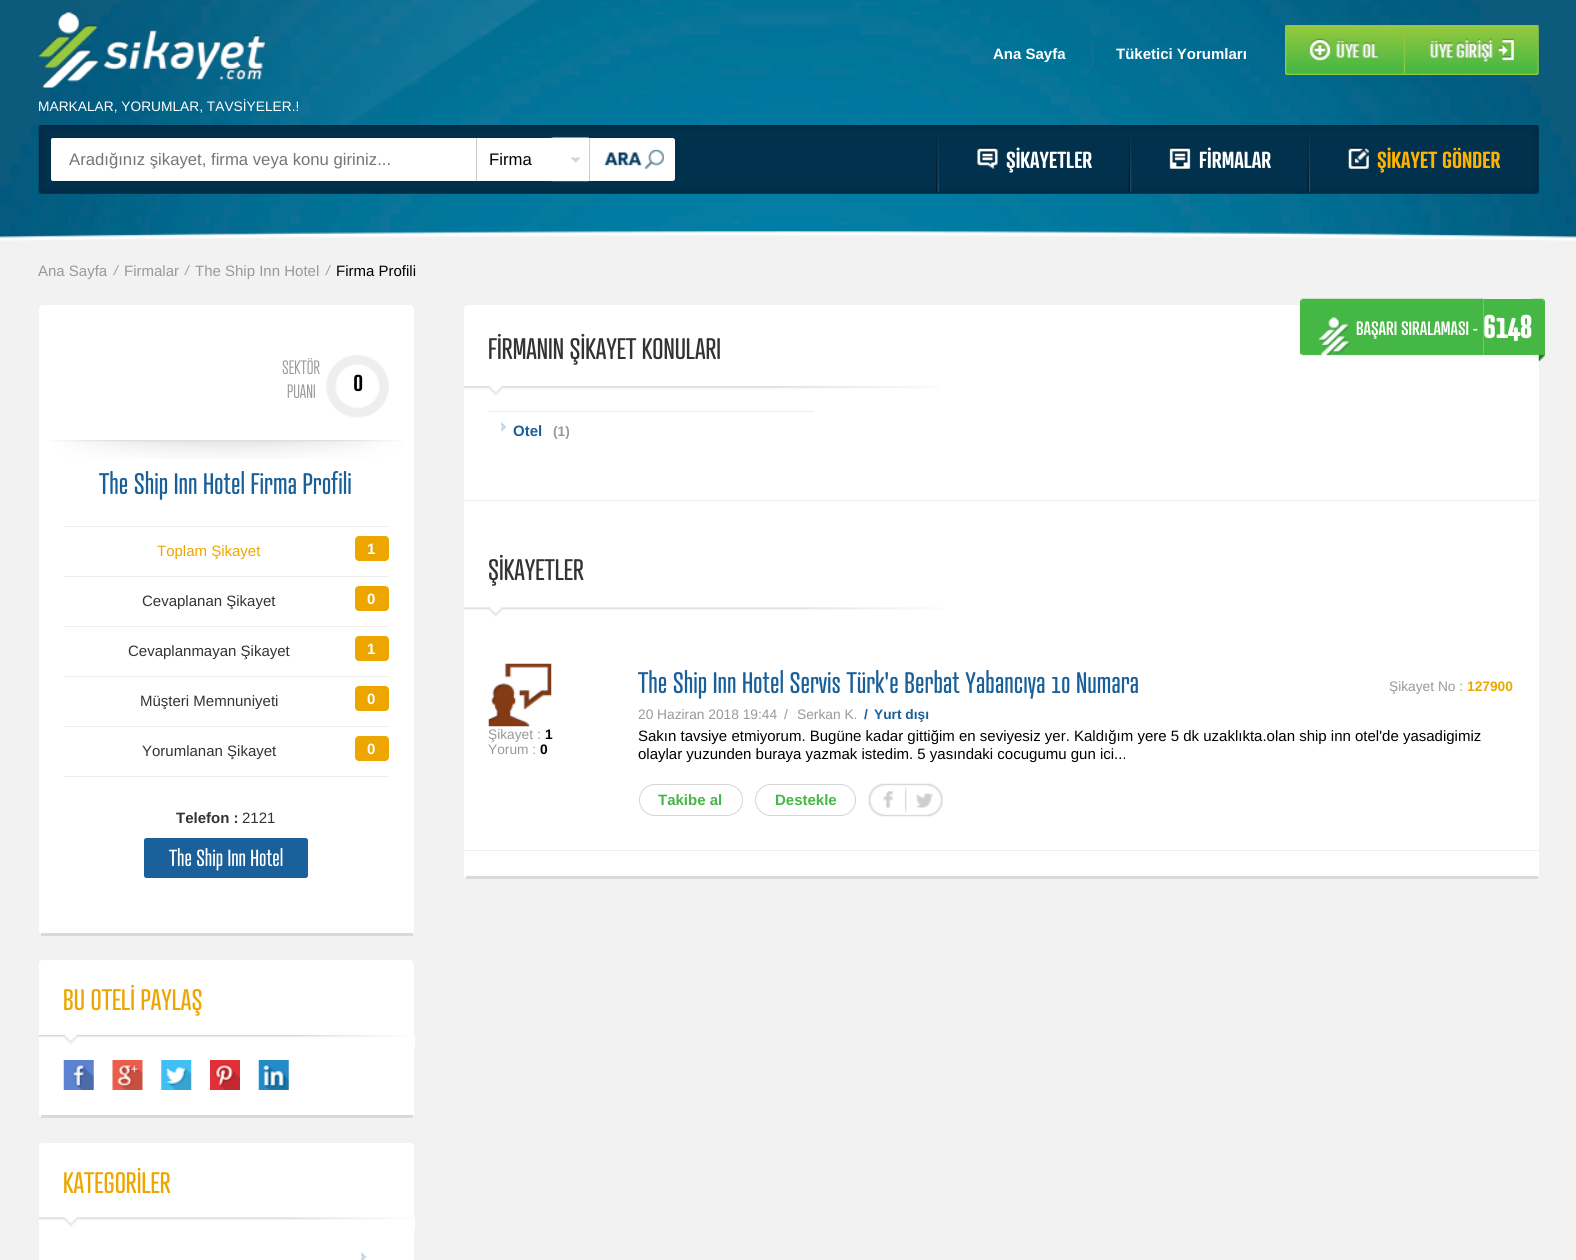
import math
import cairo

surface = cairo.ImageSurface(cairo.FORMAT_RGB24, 1576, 1260)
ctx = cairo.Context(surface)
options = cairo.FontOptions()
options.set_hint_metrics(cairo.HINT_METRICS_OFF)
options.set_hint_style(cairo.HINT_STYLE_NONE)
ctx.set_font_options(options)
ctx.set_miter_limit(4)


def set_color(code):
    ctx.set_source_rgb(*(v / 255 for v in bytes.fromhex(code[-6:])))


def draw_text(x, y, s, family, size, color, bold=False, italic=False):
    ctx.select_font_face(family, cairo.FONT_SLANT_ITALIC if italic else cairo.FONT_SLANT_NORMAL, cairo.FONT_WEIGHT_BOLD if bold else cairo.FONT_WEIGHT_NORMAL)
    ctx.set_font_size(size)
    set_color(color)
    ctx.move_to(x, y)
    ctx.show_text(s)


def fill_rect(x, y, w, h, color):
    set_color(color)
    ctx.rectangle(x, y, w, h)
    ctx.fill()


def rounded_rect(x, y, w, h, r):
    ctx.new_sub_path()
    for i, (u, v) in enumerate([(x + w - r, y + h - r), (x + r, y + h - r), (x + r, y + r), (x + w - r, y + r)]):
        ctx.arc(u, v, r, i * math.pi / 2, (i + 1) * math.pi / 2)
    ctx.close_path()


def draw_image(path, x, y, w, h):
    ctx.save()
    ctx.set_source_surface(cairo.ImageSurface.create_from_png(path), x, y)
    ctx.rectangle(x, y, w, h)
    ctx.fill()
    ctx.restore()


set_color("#f2f2f2")
ctx.paint()
draw_image("assets/img1.png", 0, 0, 1576, 241)
draw_image("assets/img2.png", 38, 12, 227, 76)
draw_text(993, 59, "Ana Sayfa", "Liberation Sans", 15, "#ffffff", bold=True)
fill_rect(1091, 41, 3, 26, "#136f8d")
draw_text(1116, 59, "Tüketici Yorumları", "Liberation Sans", 15, "#ffffff", bold=True)
draw_image("assets/img3.png", 1285, 25, 254, 50)
draw_text(38, 111, "MARKALAR, YORUMLAR, TAVSİYELER.!", "Liberation Sans", 13.75, "#ffffff")
draw_image("assets/img4.png", 38, 125, 1501, 69)
rounded_rect(51, 138, 624, 43, 2.5)
ctx.fill()
ctx.new_path()
ctx.move_to(53.5, 138)
ctx.line_to(478, 138)
ctx.line_to(478, 181)
ctx.line_to(53.5, 181)
ctx.curve_to(52, 181, 51, 180, 51, 178.5)
ctx.line_to(51, 140.5)
ctx.curve_to(51, 139, 52, 138, 53.5, 138)
ctx.close_path()
ctx.fill()
fill_rect(476, 138, 1, 43, "#cccccc")
draw_text(69, 165, "Aradığınız şikayet, firma veya konu giriniz...", "Liberation Sans", 16.7, "#757575")
draw_image("assets/img5.png", 551, 137, 38, 45)
draw_text(489, 165, "Firma", "Liberation Sans", 16.7, "#000000")
draw_image("assets/img6.png", 604, 149, 60, 20)
fill_rect(589, 138, 1, 43, "#cccccc")
draw_image("assets/img7.png", 936, 133, 3, 60)
draw_image("assets/img8.png", 977, 147, 21, 22)
draw_text(1006, 168, "ŞİKAYETLER", "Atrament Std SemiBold", 22.5, "#ffffff")
draw_image("assets/img9.png", 1128, 131, 4, 62)
draw_image("assets/img10.png", 1169, 147, 22, 22)
draw_text(1199, 168, "FİRMALAR", "Atrament Std SemiBold", 22.5, "#ffffff")
draw_image("assets/img11.png", 1307, 132, 3, 61)
draw_image("assets/img12.png", 1348, 147, 21, 22)
draw_text(1377, 168, "ŞİKAYET GÖNDER", "Atrament Std SemiBold", 22.5, "#ffb300")
draw_text(38, 276, "Ana Sayfa", "Liberation Sans", 15, "#999999")
draw_text(114, 275, "/", "Liberation Sans", 13.75, "#999999", italic=True)
draw_text(124, 276, "Firmalar", "Liberation Sans", 15, "#999999")
draw_text(185, 275, "/", "Liberation Sans", 13.75, "#999999", italic=True)
draw_text(195, 276, "The Ship Inn Hotel", "Liberation Sans", 15, "#999999")
draw_text(326, 275, "/", "Liberation Sans", 13.75, "#999999", italic=True)
draw_text(336, 276, "Firma Profili", "Liberation Sans", 15, "#000000")
set_color("#ffffff")
rounded_rect(39, 305, 375, 630, 4)
ctx.fill()
fill_rect(41, 933, 372, 3, "#d9d9d9")
draw_text(282, 374, "SEKTÖR", "Atrament Std Light", 18.75, "#999999")
draw_text(287, 398, "PUANI", "Atrament Std Light", 18.75, "#999999")
draw_image("assets/img13.png", 326, 355, 63, 63)
draw_text(353, 391, "0", "Atrament Std Medium", 28.75, "#000000")
draw_image("assets/img14.png", 50, 440, 352, 19)
draw_text(99, 494, "The Ship Inn Hotel Firma Profili", "Atrament Std", 28.75, "#195f99")
fill_rect(64, 526, 325, 1, "#eeeeee")
fill_rect(64, 576, 325, 1, "#eeeeee")
draw_text(157, 556, "Toplam Şikayet", "Liberation Sans", 15, "#eda600")
rounded_rect(355, 536, 34, 25, 4)
ctx.fill()
draw_text(367, 554, "1", "Liberation Sans", 15, "#ffffff", bold=True)
fill_rect(64, 626, 325, 1, "#eeeeee")
draw_text(142, 606, "Cevaplanan Şikayet", "Liberation Sans", 15, "#333333")
set_color("#eda600")
rounded_rect(355, 586, 34, 25, 4)
ctx.fill()
draw_text(367, 604, "0", "Liberation Sans", 15, "#ffffff", bold=True)
fill_rect(64, 676, 325, 1, "#eeeeee")
draw_text(128, 656, "Cevaplanmayan Şikayet", "Liberation Sans", 15, "#333333")
set_color("#eda600")
rounded_rect(355, 636, 34, 25, 4)
ctx.fill()
draw_text(367, 654, "1", "Liberation Sans", 15, "#ffffff", bold=True)
fill_rect(64, 726, 325, 1, "#eeeeee")
draw_text(140, 706, "Müşteri Memnuniyeti", "Liberation Sans", 15, "#333333")
set_color("#eda600")
rounded_rect(355, 686, 34, 25, 4)
ctx.fill()
draw_text(367, 704, "0", "Liberation Sans", 15, "#ffffff", bold=True)
fill_rect(64, 776, 325, 1, "#eeeeee")
draw_text(142, 756, "Yorumlanan Şikayet", "Liberation Sans", 15, "#333333")
set_color("#eda600")
rounded_rect(355, 736, 34, 25, 4)
ctx.fill()
draw_text(367, 754, "0", "Liberation Sans", 15, "#ffffff", bold=True)
draw_text(176, 823, "Telefon :", "Liberation Sans", 15, "#333333", bold=True)
draw_text(242, 823, "2121", "Liberation Sans", 15, "#333333")
set_color("#1a609a")
rounded_rect(144, 838, 164, 40, 2.5)
ctx.fill()
draw_text(169, 866, "The Ship Inn Hotel", "Atrament Std", 22.5, "#ffffff")
rounded_rect(39, 960, 375, 158, 4)
ctx.fill()
fill_rect(41, 1115, 372, 3, "#d9d9d9")
draw_image("assets/img15.png", 38, 1035, 377, 13)
draw_text(63, 1010, "BU OTELİ PAYLAŞ", "Atrament Std", 28.75, "#eda600")
draw_image("assets/img16.png", 63, 1060, 31, 30)
draw_image("assets/img17.png", 112, 1060, 31, 30)
draw_image("assets/img18.png", 161, 1060, 31, 30)
draw_image("assets/img19.png", 210, 1060, 30, 30)
draw_image("assets/img20.png", 258, 1060, 31, 30)
set_color("#ffffff")
rounded_rect(39, 1143, 375, 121, 4)
ctx.fill()
draw_image("assets/img21.png", 38, 1217, 377, 13)
draw_text(63, 1193, "KATEGORİLER", "Atrament Std", 28.75, "#eda600")
draw_image("assets/img22.png", 361, 1252, 6, 8)
set_color("#ffffff")
rounded_rect(464, 305, 1075, 574, 4)
ctx.fill()
draw_image("assets/img23.png", 1300, 298, 184, 58)
draw_text(1356, 335, "BAŞARI SIRALAMASI -", "Atrament Std Medium", 18.75, "#ffffff")
fill_rect(1484, 299, 49, 56, "#44b744")
draw_text(1483, 338, "6148", "Atrament Std", 34, "#ffffff", bold=True)
draw_image("assets/img24.png", 1532, 298, 13, 64)
fill_rect(466, 876, 1072, 3, "#d9d9d9")
draw_image("assets/img25.png", 463, 386, 476, 10)
draw_text(488, 359, "FİRMANIN ŞİKAYET KONULARI", "Atrament Std", 28.75, "#333333")
fill_rect(489, 411, 325, 1, "#eeeeee")
draw_image("assets/img26.png", 501, 422, 6, 10)
draw_text(513, 436, "Otel", "Liberation Sans", 15, "#195f99", bold=True)
draw_text(553, 436, "(1)", "Liberation Sans", 13.75, "#999999", bold=True)
fill_rect(464, 500, 1075, 1, "#eeeeee")
draw_image("assets/img27.png", 463, 607, 480, 10)
draw_text(488, 580, "ŞİKAYETLER", "Atrament Std", 28.75, "#333333")
fill_rect(464, 850, 1075, 1, "#eeeeee")
draw_image("assets/img28.png", 488, 663, 64, 64)
draw_text(488, 739, "Şikayet :", "Liberation Sans", 13.75, "#999999")
draw_text(545, 739, "1", "Liberation Sans", 13.75, "#000000", bold=True)
draw_text(488, 754, "Yorum :", "Liberation Sans", 13.75, "#999999")
draw_text(540, 754, "0", "Liberation Sans", 13.75, "#000000", bold=True)
draw_text(638, 693, "The Ship Inn Hotel Servis Türk'e Berbat Yabancıya 10 Numara", "Atrament Std", 28.75, "#195f99")
draw_text(1389, 691, "Şikayet No :", "Liberation Sans", 13.75, "#999999")
draw_text(1467, 691, "127900", "Liberation Sans", 13.75, "#eda600", bold=True)
draw_text(638, 719, "20 Haziran 2018 19:44", "Liberation Sans", 13.75, "#999999")
draw_text(784, 719, "/", "Liberation Sans", 13.75, "#999999")
draw_text(797, 719, "Serkan K.", "Liberation Sans", 13.75, "#999999")
draw_text(864, 719, "/", "Liberation Sans", 13.75, "#195f99", bold=True)
draw_text(874, 719, "Yurt dışı", "Liberation Sans", 13.75, "#195f99", bold=True)
draw_text(638, 741, "Sakın tavsiye etmiyorum. Bugüne kadar gittiğim en seviyesiz yer. Kaldığım yere 5 dk uzaklıkta.olan ship inn otel'de yasadigimiz", "Liberation Sans", 15, "#000000")
draw_text(638, 759, "olaylar yuzunden buraya yazmak istedim. 5 yasındaki cocugumu gun ici...", "Liberation Sans", 15, "#000000")
rounded_rect(639.5, 784.5, 103, 31, 15.5)
set_color("#d5d5d5")
ctx.set_line_width(1)
ctx.stroke()
draw_text(658, 805, "Takibe al", "Liberation Sans", 15, "#44b744", bold=True)
rounded_rect(755.5, 784.5, 100, 31, 15.5)
set_color("#d5d5d5")
ctx.stroke()
draw_text(775, 805, "Destekle", "Liberation Sans", 15, "#44b744", bold=True)
draw_image("assets/img29.png", 868, 783, 75, 34)
surface.write_to_png("output.png")
